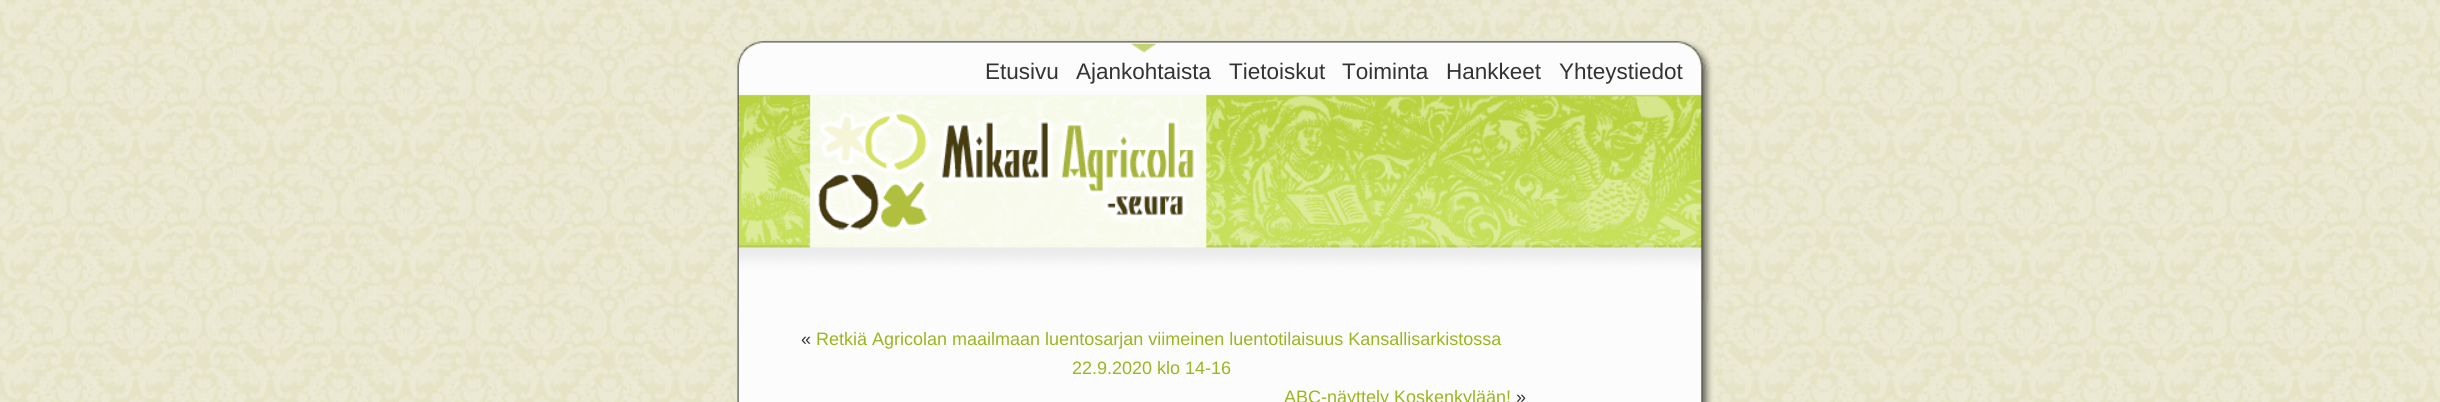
import math
import cairo

surface = cairo.ImageSurface(cairo.FORMAT_RGB24, 2440, 402)
ctx = cairo.Context(surface)
options = cairo.FontOptions()
options.set_hint_metrics(cairo.HINT_METRICS_OFF)
options.set_hint_style(cairo.HINT_STYLE_NONE)
ctx.set_font_options(options)
ctx.set_miter_limit(4)


def set_color(code):
    ctx.set_source_rgb(*(v / 255 for v in bytes.fromhex(code[-6:])))


def draw_text(x, y, s, family, size, color, bold=False, italic=False):
    ctx.select_font_face(family, cairo.FONT_SLANT_ITALIC if italic else cairo.FONT_SLANT_NORMAL, cairo.FONT_WEIGHT_BOLD if bold else cairo.FONT_WEIGHT_NORMAL)
    ctx.set_font_size(size)
    set_color(color)
    ctx.move_to(x, y)
    ctx.show_text(s)


def draw_image(path, x, y, w, h):
    ctx.save()
    ctx.set_source_surface(cairo.ImageSurface.create_from_png(path), x, y)
    ctx.rectangle(x, y, w, h)
    ctx.fill()
    ctx.restore()


set_color("#ffffff")
ctx.paint()
draw_image("assets/img1.png", 0, 0, 2440, 402)
draw_image("assets/img2.png", 736, 39, 978, 261)
draw_text(985, 79, "Etusivu", "Liberation Sans", 22.5, "#333333")
draw_image("assets/img3.png", 1131, 43, 26, 10)
draw_text(1076, 79, "Ajankohtaista", "Liberation Sans", 22.5, "#333333")
draw_text(1229, 79, "Tietoiskut", "Liberation Sans", 22.5, "#333333")
draw_text(1342, 79, "Toiminta", "Liberation Sans", 22.5, "#333333")
draw_text(1446, 79, "Hankkeet", "Liberation Sans", 22.5, "#333333")
draw_text(1559, 79, "Yhteystiedot", "Liberation Sans", 22.5, "#333333")
draw_image("assets/img4.png", 736, 300, 978, 102)
draw_text(801, 345, "«", "Liberation Sans", 18, "#333333")
draw_text(816, 345, "Retkiä Agricolan maailmaan luentosarjan viimeinen luentotilaisuus Kansallisarkistossa", "Liberation Sans", 18, "#9ab51f")
draw_text(1072, 374, "22.9.2020 klo 14-16", "Liberation Sans", 18, "#9ab51f")
draw_text(1284, 403, "ABC-näyttely Koskenkylään!", "Liberation Sans", 18, "#9ab51f")
draw_text(1516, 403, "»", "Liberation Sans", 18, "#333333")
surface.write_to_png("output.png")
